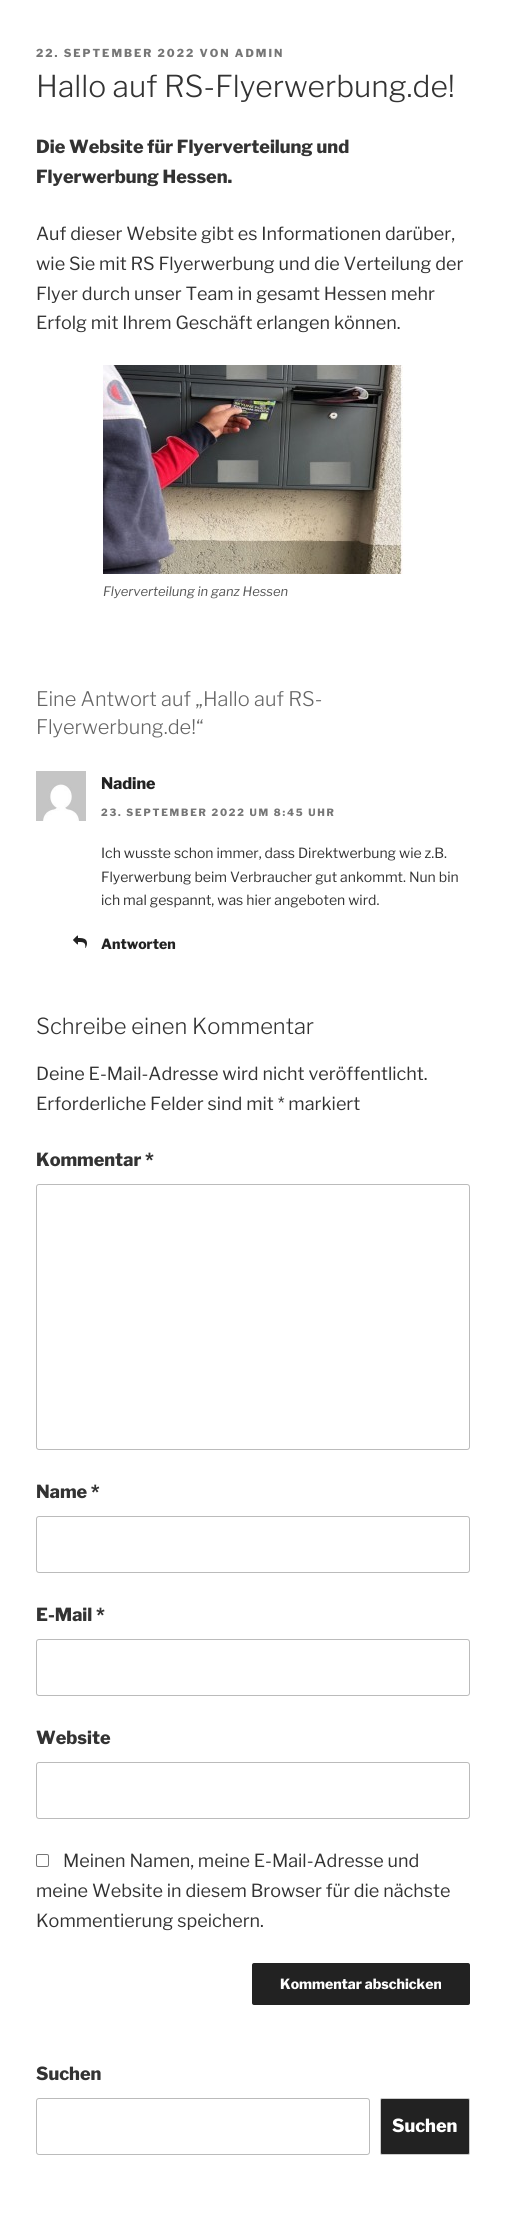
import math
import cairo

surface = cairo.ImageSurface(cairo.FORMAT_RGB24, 506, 2222)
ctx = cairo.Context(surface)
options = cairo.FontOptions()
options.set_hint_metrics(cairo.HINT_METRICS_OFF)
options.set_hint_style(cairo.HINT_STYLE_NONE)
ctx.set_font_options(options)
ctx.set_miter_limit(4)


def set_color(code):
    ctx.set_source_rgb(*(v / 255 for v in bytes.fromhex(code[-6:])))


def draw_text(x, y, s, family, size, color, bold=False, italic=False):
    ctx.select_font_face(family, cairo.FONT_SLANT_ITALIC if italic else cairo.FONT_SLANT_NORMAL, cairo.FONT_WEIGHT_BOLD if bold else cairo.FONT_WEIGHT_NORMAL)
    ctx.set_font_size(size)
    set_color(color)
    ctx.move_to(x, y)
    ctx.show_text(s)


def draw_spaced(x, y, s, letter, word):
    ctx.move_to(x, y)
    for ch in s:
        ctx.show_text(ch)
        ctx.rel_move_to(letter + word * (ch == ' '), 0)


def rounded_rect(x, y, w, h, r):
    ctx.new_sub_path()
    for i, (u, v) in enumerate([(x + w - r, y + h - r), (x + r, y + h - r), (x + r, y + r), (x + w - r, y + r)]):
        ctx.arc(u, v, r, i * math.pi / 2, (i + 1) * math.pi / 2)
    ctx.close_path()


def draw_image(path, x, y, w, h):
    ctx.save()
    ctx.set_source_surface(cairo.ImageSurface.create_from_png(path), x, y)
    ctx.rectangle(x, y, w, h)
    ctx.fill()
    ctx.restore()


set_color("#ffffff")
ctx.paint()
ctx.select_font_face("Libre Franklin ExtraBold")
ctx.set_font_size(11)
set_color("#767676")
draw_spaced(36, 57, "22. SEPTEMBER 2022 VON ADMIN", 2, 0)
draw_text(36, 97, "Hallo auf RS-Flyerwerbung.de!", "Libre Franklin Light", 30, "#333333")
draw_text(36, 153, "Die Website für Flyerverteilung und", "Libre Franklin ExtraBold", 18, "#333333")
draw_text(36, 183, "Flyerwerbung Hessen.", "Libre Franklin ExtraBold", 18, "#333333")
draw_text(36, 240, "Auf dieser Website gibt es Informationen darüber,", "Libre Franklin", 18, "#333333")
draw_text(36, 270, "wie Sie mit RS Flyerwerbung und die Verteilung der", "Libre Franklin", 18, "#333333")
draw_text(36, 300, "Flyer durch unser Team in gesamt Hessen mehr", "Libre Franklin", 18, "#333333")
draw_text(36, 329, "Erfolg mit Ihrem Geschäft erlangen können.", "Libre Franklin", 18, "#333333")
draw_image("assets/img1.png", 103, 365, 300, 209)
draw_text(103, 596, "Flyerverteilung in ganz Hessen", "Libre Franklin", 13, "#555555", italic=True)
draw_text(36, 706, "Eine Antwort auf „Hallo auf RS-", "Libre Franklin Light", 20, "#666666")
draw_text(36, 734, "Flyerwerbung.de!“", "Libre Franklin Light", 20, "#666666")
draw_image("assets/img2.png", 36, 771, 50, 50)
draw_text(101, 789, "Nadine", "Libre Franklin ExtraBold", 16, "#222222")
ctx.set_font_size(10)
set_color("#767676")
draw_spaced(101, 816, "23. SEPTEMBER 2022 UM 8:45 UHR", 1.8, 0)
draw_text(101, 858, "Ich wusste schon immer, dass Direktwerbung wie z.B.", "Libre Franklin", 14, "#333333")
draw_text(101, 882, "Flyerwerbung beim Verbraucher gut ankommt. Nun bin", "Libre Franklin", 14, "#333333")
draw_text(101, 905, "ich mal gespannt, was hier angeboten wird.", "Libre Franklin", 14, "#333333")
draw_image("assets/img3.png", 73, 935, 14, 13)
draw_text(101, 949, "Antworten", "Libre Franklin ExtraBold", 14, "#222222")
draw_text(36, 1034, "Schreibe einen Kommentar", "Libre Franklin Light", 22, "#333333")
draw_text(36, 1080, "Deine E-Mail-Adresse wird nicht veröffentlicht.", "Libre Franklin", 18, "#333333")
draw_text(36, 1110, "Erforderliche Felder sind mit * markiert", "Libre Franklin", 18, "#333333")
draw_text(36, 1166, "Kommentar *", "Libre Franklin ExtraBold", 18, "#333333")
rounded_rect(36.5, 1184.5, 433, 265, 2.5)
set_color("#bbbbbb")
ctx.set_line_width(1)
ctx.stroke()
draw_text(36, 1498, "Name *", "Libre Franklin ExtraBold", 18, "#333333")
rounded_rect(36.5, 1516.5, 433, 56, 2.5)
set_color("#bbbbbb")
ctx.stroke()
draw_text(36, 1621, "E-Mail *", "Libre Franklin ExtraBold", 18, "#333333")
rounded_rect(36.5, 1639.5, 433, 56, 2.5)
set_color("#bbbbbb")
ctx.stroke()
draw_text(36, 1744, "Website", "Libre Franklin ExtraBold", 18, "#333333")
rounded_rect(36.5, 1762.5, 433, 56, 2.5)
set_color("#bbbbbb")
ctx.stroke()
rounded_rect(36.5, 1854.5, 12, 12, 1.5)
set_color("#767676")
ctx.stroke()
draw_text(63, 1867, "Meinen Namen, meine E-Mail-Adresse und", "Libre Franklin", 18, "#333333")
draw_text(36, 1897, "meine Website in diesem Browser für die nächste", "Libre Franklin", 18, "#333333")
draw_text(36, 1927, "Kommentierung speichern.", "Libre Franklin", 18, "#333333")
set_color("#222222")
rounded_rect(252, 1963, 218, 42, 2)
ctx.fill()
draw_text(280, 1989, "Kommentar abschicken", "Libre Franklin ExtraBold", 14, "#ffffff")
draw_text(36, 2080, "Suchen", "Libre Franklin ExtraBold", 18, "#333333")
rounded_rect(36.5, 2098.5, 333, 56, 2.5)
set_color("#bbbbbb")
ctx.stroke()
set_color("#222222")
rounded_rect(380.5, 2098.5, 89, 56, 1.5)
ctx.fill_preserve()
set_color("#cccccc")
ctx.stroke()
draw_text(392, 2132, "Suchen", "Libre Franklin ExtraBold", 18, "#ffffff")
surface.write_to_png("output.png")
